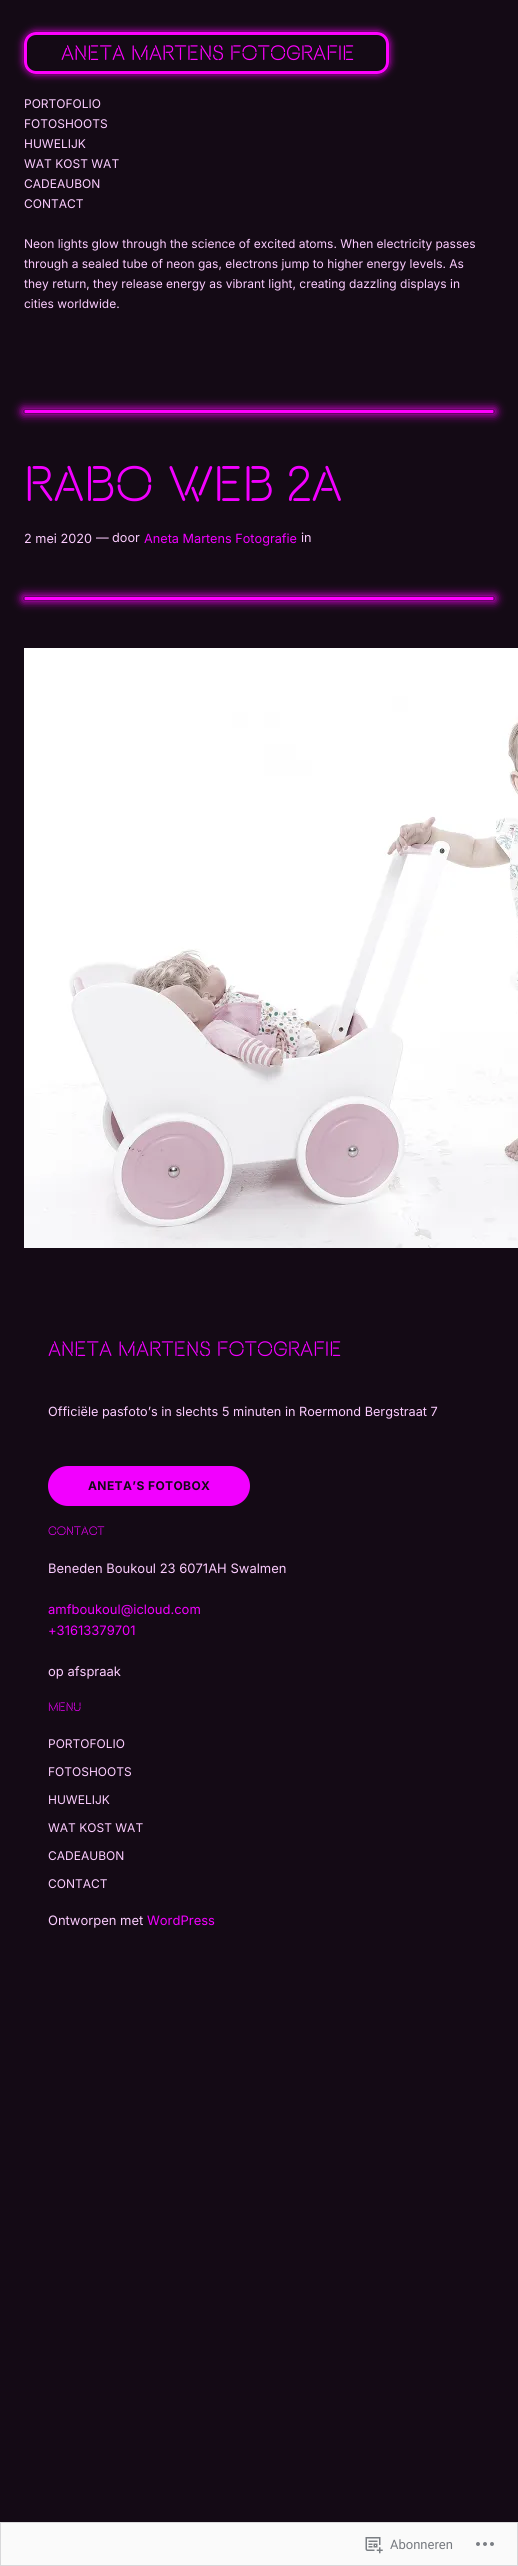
import math
import cairo

surface = cairo.ImageSurface(cairo.FORMAT_RGB24, 518, 2566)
ctx = cairo.Context(surface)
options = cairo.FontOptions()
options.set_hint_metrics(cairo.HINT_METRICS_OFF)
options.set_hint_style(cairo.HINT_STYLE_NONE)
ctx.set_font_options(options)
ctx.set_miter_limit(4)


def set_color(code):
    ctx.set_source_rgb(*(v / 255 for v in bytes.fromhex(code[-6:])))


def draw_text(x, y, s, family, size, color, bold=False, italic=False):
    ctx.select_font_face(family, cairo.FONT_SLANT_ITALIC if italic else cairo.FONT_SLANT_NORMAL, cairo.FONT_WEIGHT_BOLD if bold else cairo.FONT_WEIGHT_NORMAL)
    ctx.set_font_size(size)
    set_color(color)
    ctx.move_to(x, y)
    ctx.show_text(s)


def draw_spaced(x, y, s, letter, word):
    ctx.move_to(x, y)
    for ch in s:
        ctx.show_text(ch)
        ctx.rel_move_to(letter + word * (ch == ' '), 0)


def fill_rect(x, y, w, h, color):
    set_color(color)
    ctx.rectangle(x, y, w, h)
    ctx.fill()


def rounded_rect(x, y, w, h, r):
    ctx.new_sub_path()
    for i, (u, v) in enumerate([(x + w - r, y + h - r), (x + r, y + h - r), (x + r, y + r), (x + w - r, y + r)]):
        ctx.arc(u, v, r, i * math.pi / 2, (i + 1) * math.pi / 2)
    ctx.close_path()


def draw_shadow(x, y, w, h, r, blur, alpha):
    ctx.push_group_with_content(cairo.CONTENT_ALPHA)
    ctx.set_operator(cairo.OPERATOR_SOURCE)
    for i in range(15, -16, -2):
        e = blur * i / 6
        if min(w, h) + 2 * e > 0:
            ctx.set_source_rgba(0, 0, 0, alpha * math.erfc((i - 1) / 8.5) / 2)
            rounded_rect(x - e, y - e, w + 2 * e, h + 2 * e, max(0, min(r + e + blur * .6, min(w, h) / 2 + e)))
            ctx.fill()
    ctx.mask(ctx.pop_group())


def draw_image(path, x, y, w, h):
    ctx.save()
    ctx.set_source_surface(cairo.ImageSurface.create_from_png(path), x, y)
    ctx.rectangle(x, y, w, h)
    ctx.fill()
    ctx.restore()


set_color("#140a15")
ctx.paint()
ctx.save()
ctx.set_fill_rule(cairo.FILL_RULE_EVEN_ODD)
ctx.new_path()
ctx.move_to(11, 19)
ctx.line_to(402, 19)
ctx.line_to(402, 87)
ctx.line_to(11, 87)
ctx.close_path()
ctx.move_to(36, 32)
ctx.line_to(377, 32)
ctx.curve_to(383.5, 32, 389, 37.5, 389, 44)
ctx.line_to(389, 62)
ctx.curve_to(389, 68.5, 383.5, 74, 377, 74)
ctx.line_to(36, 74)
ctx.curve_to(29.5, 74, 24, 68.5, 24, 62)
ctx.line_to(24, 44)
ctx.curve_to(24, 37.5, 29.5, 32, 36, 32)
ctx.close_path()
ctx.clip()
set_color("#ff00ff")
draw_shadow(24, 32, 365, 42, 12, 4, 1)
ctx.restore()
rounded_rect(23.5, 31.5, 366, 43, 12.5)
ctx.set_source_rgba(0, 0, 0, 0.15)
ctx.set_line_width(1)
ctx.stroke()
rounded_rect(27.5, 35.5, 358, 35, 8.5)
set_color("#110912")
ctx.stroke()
rounded_rect(25.5, 33.5, 362, 39, 10.5)
set_color("#ff00ff")
ctx.set_line_width(3)
ctx.stroke()
draw_text(61, 60, "ANETA MARTENS FOTOGRAFIE", "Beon", 22.25, "#ff00ff")
draw_text(24, 108, "PORTOFOLIO", "Inter", 12, "#fcccff")
draw_text(24, 128, "FOTOSHOOTS", "Inter", 12, "#fcccff")
draw_text(24, 148, "HUWELIJK", "Inter", 12, "#fcccff")
draw_text(24, 168, "WAT KOST WAT", "Inter", 12, "#fcccff")
draw_text(24, 188, "CADEAUBON", "Inter", 12, "#fcccff")
draw_text(24, 208, "CONTACT", "Inter", 12, "#fcccff")
draw_text(24, 248, "Neon lights glow through the science of excited atoms. When electricity passes", "Inter", 12, "#fcccff")
draw_text(24, 268, "through a sealed tube of neon gas, electrons jump to higher energy levels. As", "Inter", 12, "#fcccff")
draw_text(24, 288, "they return, they release energy as vibrant light, creating dazzling displays in", "Inter", 12, "#fcccff")
draw_text(24, 308, "cities worldwide.", "Inter", 12, "#fcccff")
set_color("#ff00ff")
draw_shadow(23, 409, 472, 5, 2.5, 5, 1)
rounded_rect(23.5, 409.5, 471, 4, 2)
ctx.set_source_rgba(0, 0, 0, 0.3)
ctx.set_line_width(1)
ctx.stroke()
fill_rect(25, 410, 468, 3, "#ff00ff")
draw_text(24, 501, "RABO WEB 2A", "Beon", 53, "#f200ff")
draw_text(24, 543, "2 mei 2020", "Inter", 12.7, "#fcccff")
draw_text(96, 542, "—", "Inter", 12.7, "#fcccff")
draw_text(112, 542, "door", "Inter", 12.7, "#fcccff")
draw_text(144, 543, "Aneta Martens Fotografie", "Inter", 12.7, "#f200ff")
draw_text(301, 542, "in", "Inter", 12.7, "#fcccff")
set_color("#ff00ff")
draw_shadow(23, 596, 472, 5, 2.5, 5, 1)
rounded_rect(23.5, 596.5, 471, 4, 2)
ctx.set_source_rgba(0, 0, 0, 0.3)
ctx.stroke()
fill_rect(25, 597, 468, 3, "#ff00ff")
draw_image("assets/img1.png", 24, 648, 494, 600)
draw_text(48, 1356, "ANETA MARTENS FOTOGRAFIE", "Beon", 22.25, "#f200ff")
draw_text(48, 1416, "Officiële pasfoto’s in slechts 5 minuten in Roermond Bergstraat 7", "Inter", 12.7, "#fcccff")
set_color("#f200ff")
rounded_rect(48, 1466, 202, 40, 20)
ctx.fill()
ctx.select_font_face("Inter", cairo.FONT_SLANT_NORMAL, cairo.FONT_WEIGHT_BOLD)
ctx.set_font_size(12)
set_color("#140a15")
draw_spaced(88, 1490, "ANETA’S FOTOBOX", 0.4, 0)
draw_text(48, 1535, "CONTACT", "Beon", 13, "#f200ff")
draw_text(48, 1573, "Beneden Boukoul 23 6071AH Swalmen", "Inter", 13, "#fcccff")
draw_text(48, 1614, "amfboukoul@icloud.com", "Inter", 13, "#f200ff")
draw_text(48, 1635, "+31613379701", "Inter", 13, "#f200ff")
draw_text(48, 1676, "op afspraak", "Inter", 13, "#fcccff")
draw_text(48, 1711, "MENU", "Beon", 13, "#f200ff")
draw_text(48, 1748, "PORTOFOLIO", "Inter", 12, "#fcccff")
draw_text(48, 1776, "FOTOSHOOTS", "Inter", 12, "#fcccff")
draw_text(48, 1804, "HUWELIJK", "Inter", 12, "#fcccff")
draw_text(48, 1832, "WAT KOST WAT", "Inter", 12, "#fcccff")
draw_text(48, 1860, "CADEAUBON", "Inter", 12, "#fcccff")
draw_text(48, 1888, "CONTACT", "Inter", 12, "#fcccff")
draw_text(48, 1925, "Ontworpen met", "Inter", 13, "#fcccff")
draw_text(147, 1925, "WordPress", "Inter", 13, "#f200ff")
set_color("#fafafa")
ctx.rectangle(0.5, 2522.5, 517, 43)
ctx.fill_preserve()
set_color("#d8d8da")
ctx.stroke()
draw_image("assets/img2.png", 365, 2537, 18, 17)
draw_text(390, 2549, "Abonneren", "Roboto", 13, "#767a80")
draw_image("assets/img3.png", 476, 2542, 18, 4)
surface.write_to_png("output.png")
